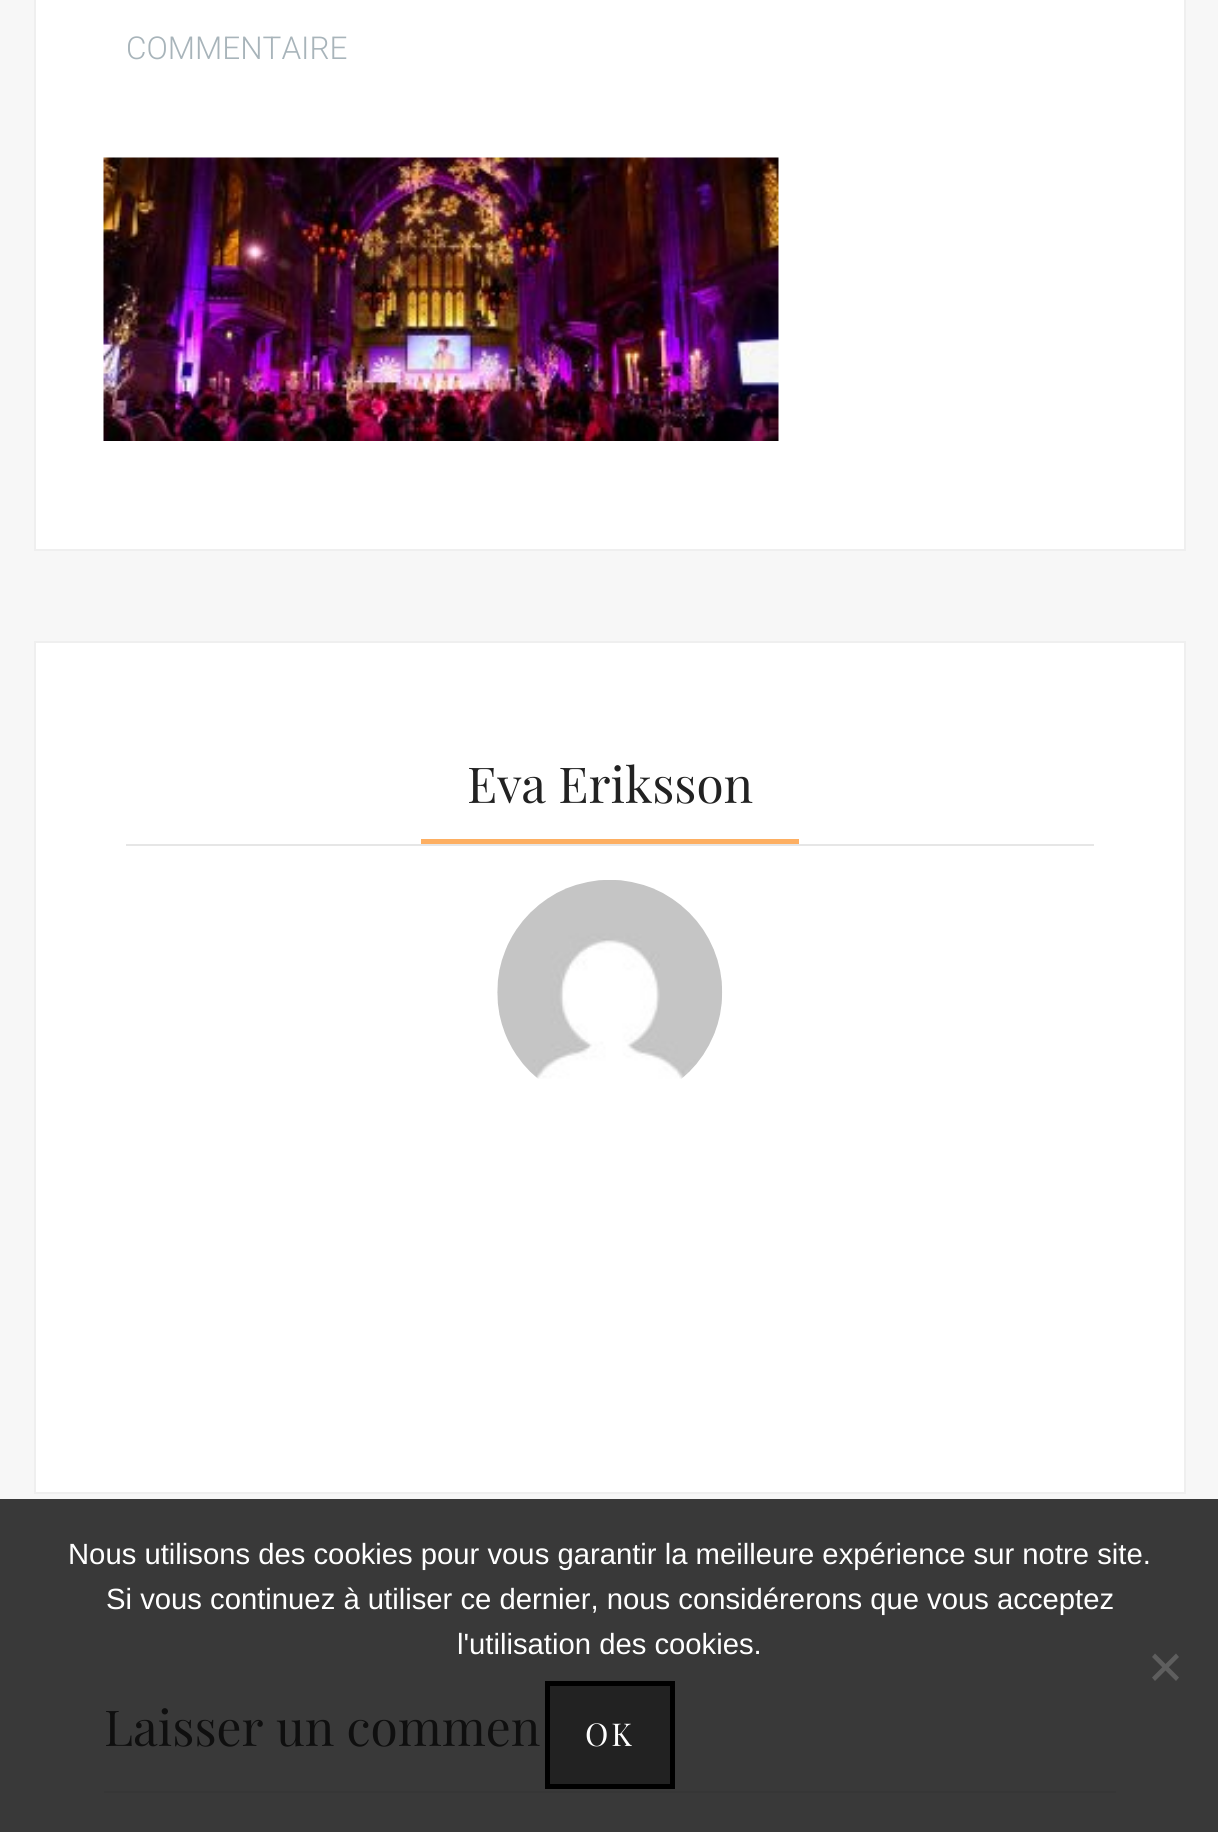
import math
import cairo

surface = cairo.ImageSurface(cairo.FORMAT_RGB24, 1218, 1832)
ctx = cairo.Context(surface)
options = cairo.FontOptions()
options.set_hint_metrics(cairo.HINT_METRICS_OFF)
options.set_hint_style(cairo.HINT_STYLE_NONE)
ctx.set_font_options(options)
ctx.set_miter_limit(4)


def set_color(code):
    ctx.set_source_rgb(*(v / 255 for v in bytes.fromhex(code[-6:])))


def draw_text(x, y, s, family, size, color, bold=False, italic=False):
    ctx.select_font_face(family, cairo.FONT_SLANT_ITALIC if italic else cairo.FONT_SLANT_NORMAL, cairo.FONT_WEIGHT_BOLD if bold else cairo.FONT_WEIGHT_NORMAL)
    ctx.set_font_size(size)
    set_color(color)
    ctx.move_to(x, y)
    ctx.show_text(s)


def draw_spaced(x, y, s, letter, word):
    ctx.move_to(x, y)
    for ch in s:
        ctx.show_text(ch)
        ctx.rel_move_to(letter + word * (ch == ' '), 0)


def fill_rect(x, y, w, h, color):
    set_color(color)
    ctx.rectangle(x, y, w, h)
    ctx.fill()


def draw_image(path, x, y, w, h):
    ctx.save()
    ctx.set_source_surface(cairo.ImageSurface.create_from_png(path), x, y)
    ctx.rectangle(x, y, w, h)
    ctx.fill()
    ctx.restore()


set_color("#f7f7f7")
ctx.paint()
fill_rect(0, 1499, 1218, 333, "#393939")
set_color("#ffffff")
ctx.rectangle(35, -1, 1150, 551)
ctx.fill_preserve()
set_color("#efefef")
ctx.stroke()
draw_text(126, 59, "COMMENTAIRE", "Roboto Light", 31.5, "#a8b4ba")
draw_image("assets/img1.png", 103, 157, 676, 284)
set_color("#ffffff")
ctx.rectangle(35, 642, 1150, 851)
ctx.fill_preserve()
set_color("#efefef")
ctx.stroke()
fill_rect(126, 844, 968, 2, "#e6e6e6")
draw_text(467, 803, "Eva Eriksson", "Playfair Display", 49.5, "#222222")
fill_rect(421, 839, 378, 5, "#fdaf62")
draw_image("assets/img2.png", 497, 880, 226, 199)
fill_rect(104, 1791, 1012, 2, "#363636")
draw_text(104, 1746, "Laisser un commen", "Playfair Display", 49.5, "#0f0f0f")
draw_text(68, 1564, "Nous utilisons des cookies pour vous garantir la meilleure expérience sur notre site.", "Liberation Sans", 29.25, "#ffffff")
draw_text(106, 1609, "Si vous continuez à utiliser ce dernier, nous considérerons que vous acceptez", "Liberation Sans", 29.25, "#ffffff")
draw_text(457, 1654, "l'utilisation des cookies.", "Liberation Sans", 29.25, "#ffffff")
set_color("#5e5e5e")
ctx.new_path()
ctx.move_to(1176, 1653.5)
ctx.line_to(1179, 1657)
ctx.line_to(1155, 1681)
ctx.line_to(1152, 1677.5)
ctx.close_path()
ctx.fill()
ctx.new_path()
ctx.move_to(1152, 1657)
ctx.line_to(1155, 1653.5)
ctx.line_to(1179, 1677.5)
ctx.line_to(1176, 1681)
ctx.close_path()
ctx.fill()
set_color("#222222")
ctx.rectangle(547.5, 1683.5, 125, 103)
ctx.fill_preserve()
set_color("#000000")
ctx.set_line_width(5)
ctx.stroke()
ctx.select_font_face("Playfair Display")
ctx.set_font_size(31.5)
set_color("#ffffff")
draw_spaced(585, 1746, "OK", 3, 0)
surface.write_to_png("output.png")
